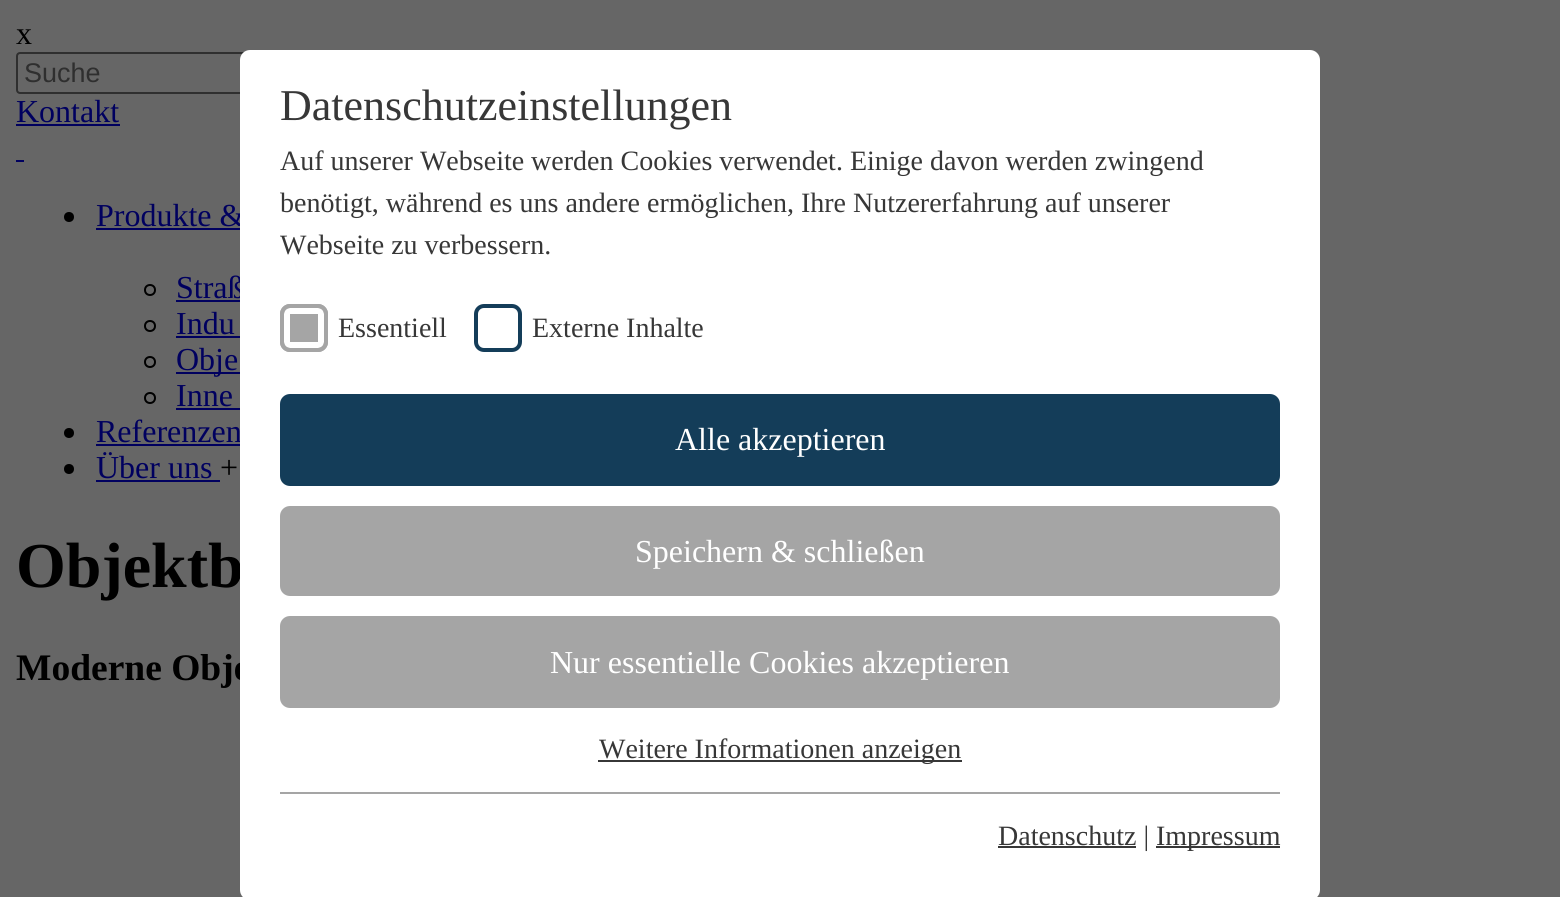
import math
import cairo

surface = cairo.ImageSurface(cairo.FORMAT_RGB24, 1560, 897)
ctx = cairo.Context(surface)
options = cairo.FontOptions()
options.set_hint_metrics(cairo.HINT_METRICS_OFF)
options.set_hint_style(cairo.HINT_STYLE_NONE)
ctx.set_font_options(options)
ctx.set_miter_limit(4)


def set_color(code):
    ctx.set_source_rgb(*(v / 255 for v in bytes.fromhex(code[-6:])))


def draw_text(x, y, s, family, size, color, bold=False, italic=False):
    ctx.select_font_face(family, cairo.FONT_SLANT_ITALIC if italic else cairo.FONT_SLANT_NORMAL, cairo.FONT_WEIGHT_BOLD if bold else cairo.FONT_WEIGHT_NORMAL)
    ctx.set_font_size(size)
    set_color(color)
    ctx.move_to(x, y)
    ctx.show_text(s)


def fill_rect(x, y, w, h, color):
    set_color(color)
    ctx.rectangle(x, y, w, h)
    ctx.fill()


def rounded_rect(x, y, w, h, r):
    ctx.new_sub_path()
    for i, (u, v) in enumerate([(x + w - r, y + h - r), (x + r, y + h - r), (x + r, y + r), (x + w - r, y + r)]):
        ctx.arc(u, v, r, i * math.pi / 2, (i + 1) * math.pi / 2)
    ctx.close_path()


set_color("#666666")
ctx.paint()
draw_text(16, 44, "x", "Liberation Serif", 32, "#000000")
rounded_rect(17, 53, 368, 40, 3)
set_color("#2f2f2f")
ctx.stroke()
draw_text(24, 82, "Suche", "Liberation Sans", 27, "#2f2f2f")
draw_text(16, 122, "Kontakt", "Liberation Serif", 32, "#00005f")
fill_rect(16, 124, 104, 2, "#00005f")
fill_rect(16, 160, 8, 2, "#00005f")
set_color("#000000")
ctx.new_path()
ctx.arc(69, 217, 5, 0, 2 * math.pi)
ctx.fill()
draw_text(96, 226, "Produkte &", "Liberation Serif", 32, "#00005f")
fill_rect(96, 228, 144, 2, "#00005f")
ctx.new_path()
ctx.arc(150, 290, 5, 0, 2 * math.pi)
set_color("#000000")
ctx.stroke()
draw_text(176, 298, "Straß", "Liberation Serif", 32, "#00005f")
fill_rect(176, 300, 64, 2, "#00005f")
ctx.new_path()
ctx.arc(150, 326, 5, 0, 2 * math.pi)
set_color("#000000")
ctx.stroke()
draw_text(176, 334, "Indu", "Liberation Serif", 32, "#00005f")
fill_rect(176, 336, 64, 2, "#00005f")
ctx.new_path()
ctx.arc(150, 362, 5, 0, 2 * math.pi)
set_color("#000000")
ctx.stroke()
fill_rect(176, 372, 64, 2, "#00005f")
draw_text(176, 370, "Obje", "Liberation Serif", 32, "#00005f")
ctx.new_path()
ctx.arc(150, 398, 5, 0, 2 * math.pi)
set_color("#000000")
ctx.stroke()
draw_text(176, 406, "Inne", "Liberation Serif", 32, "#00005f")
fill_rect(176, 408, 64, 2, "#00005f")
set_color("#000000")
ctx.new_path()
ctx.arc(69, 433, 5, 0, 2 * math.pi)
ctx.fill()
draw_text(96, 442, "Referenzen", "Liberation Serif", 32, "#00005f")
fill_rect(96, 444, 144, 2, "#00005f")
set_color("#000000")
ctx.new_path()
ctx.arc(69, 469, 5, 0, 2 * math.pi)
ctx.fill()
draw_text(96, 478, "Über uns", "Liberation Serif", 32, "#00005f")
fill_rect(96, 480, 124, 2, "#00005f")
draw_text(220, 478, "+", "Liberation Serif", 32, "#000000")
draw_text(16, 587, "Objektb", "Liberation Serif", 64, "#000000", bold=True)
draw_text(16, 680, "Moderne Obje", "Liberation Serif", 37.5, "#000000", bold=True)
set_color("#ffffff")
rounded_rect(240, 50, 1080, 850, 10)
ctx.fill()
draw_text(280, 120, "Datenschutzeinstellungen", "Liberation Serif", 44, "#373737")
draw_text(280, 170, "Auf unserer Webseite werden Cookies verwendet. Einige davon werden zwingend", "Liberation Serif", 28, "#373737")
draw_text(280, 212, "benötigt, während es uns andere ermöglichen, Ihre Nutzererfahrung auf unserer", "Liberation Serif", 28, "#373737")
draw_text(280, 254, "Webseite zu verbessern.", "Liberation Serif", 28, "#373737")
set_color("#a5a5a5")
rounded_rect(280, 304, 48, 48, 10)
ctx.fill()
rounded_rect(287, 311, 34, 34, 3)
set_color("#ffffff")
ctx.set_line_width(6)
ctx.stroke()
rounded_rect(282, 306, 44, 44, 8)
set_color("#a5a5a5")
ctx.set_line_width(4)
ctx.stroke()
draw_text(338, 337, "Essentiell", "Liberation Serif", 28, "#373737")
rounded_rect(476, 306, 44, 44, 8)
set_color("#143d59")
ctx.stroke()
draw_text(532, 337, "Externe Inhalte", "Liberation Serif", 28, "#373737")
set_color("#143d59")
rounded_rect(280, 394, 1000, 92, 10)
ctx.fill()
draw_text(675, 450, "Alle akzeptieren", "Liberation Serif", 32, "#ffffff")
set_color("#a5a5a5")
rounded_rect(280, 506, 1000, 90, 10)
ctx.fill()
draw_text(635, 562, "Speichern & schließen", "Liberation Serif", 32, "#ffffff")
set_color("#a5a5a5")
rounded_rect(280, 616, 1000, 92, 10)
ctx.fill()
draw_text(550, 673, "Nur essentielle Cookies akzeptieren", "Liberation Serif", 32, "#ffffff")
fill_rect(598, 760, 364, 2, "#373737")
draw_text(599, 758, "Weitere Informationen anzeigen", "Liberation Serif", 28, "#373737")
fill_rect(280, 792, 1000, 2, "#a5a5a5")
fill_rect(998, 846, 138, 2, "#373737")
draw_text(998, 845, "Datenschutz |", "Liberation Serif", 28, "#373737")
fill_rect(1156, 846, 124, 2, "#373737")
draw_text(1156, 845, "Impressum", "Liberation Serif", 28, "#373737")
surface.write_to_png("output.png")
